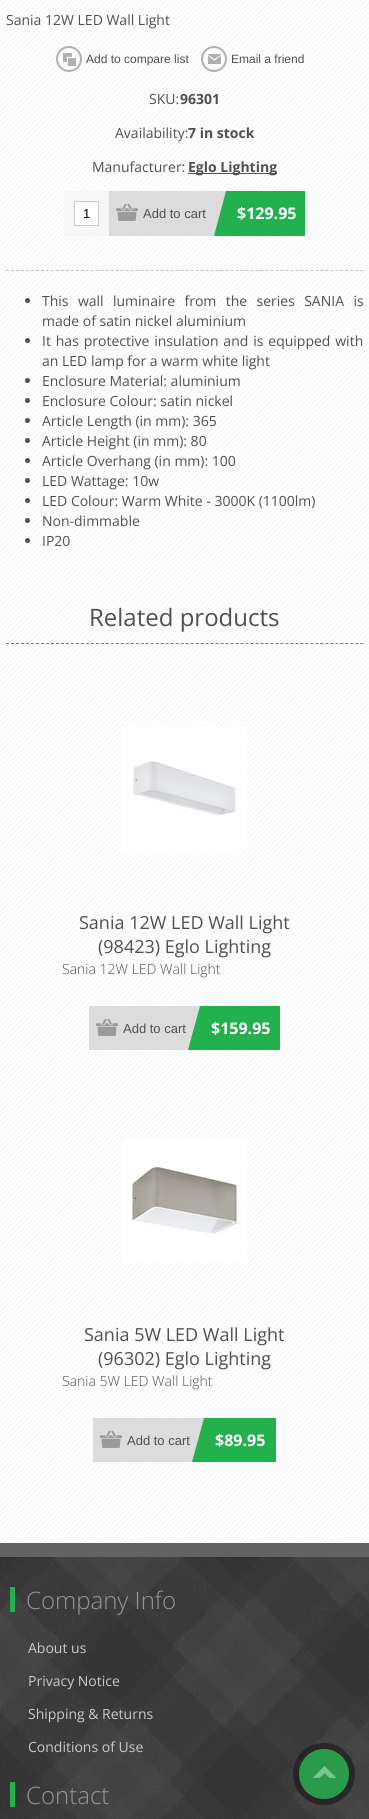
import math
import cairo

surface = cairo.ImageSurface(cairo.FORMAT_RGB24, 369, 1819)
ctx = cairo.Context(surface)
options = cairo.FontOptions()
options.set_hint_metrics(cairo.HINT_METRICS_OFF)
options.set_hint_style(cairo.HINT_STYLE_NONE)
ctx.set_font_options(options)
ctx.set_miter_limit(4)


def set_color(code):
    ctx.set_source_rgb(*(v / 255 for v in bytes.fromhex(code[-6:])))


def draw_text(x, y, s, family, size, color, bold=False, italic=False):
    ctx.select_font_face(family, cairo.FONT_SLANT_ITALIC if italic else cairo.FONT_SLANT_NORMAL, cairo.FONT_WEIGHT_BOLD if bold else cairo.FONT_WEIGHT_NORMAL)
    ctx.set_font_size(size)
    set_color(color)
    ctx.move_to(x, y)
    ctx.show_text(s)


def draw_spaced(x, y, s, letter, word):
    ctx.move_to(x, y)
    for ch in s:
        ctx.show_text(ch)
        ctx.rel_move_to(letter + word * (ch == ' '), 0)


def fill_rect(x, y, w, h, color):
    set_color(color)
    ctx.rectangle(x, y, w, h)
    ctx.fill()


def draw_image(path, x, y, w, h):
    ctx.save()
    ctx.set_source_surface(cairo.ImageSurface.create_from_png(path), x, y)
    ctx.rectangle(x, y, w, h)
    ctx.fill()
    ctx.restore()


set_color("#ffffff")
ctx.paint()
draw_image("assets/img1.png", 0, 0, 369, 1543)
ctx.new_path()
ctx.move_to(6, 270.5)
ctx.line_to(363, 270.5)
set_color("#c3c3c3")
ctx.set_line_width(1)
ctx.set_dash([3, 1.99])
ctx.stroke()
draw_text(6, 25, "Sania 12W LED Wall Light", "Open Sans", 14, "#505050")
draw_image("assets/img2.png", 63, 53, 13, 13)
ctx.arc(69, 59, 12, 0, 2 * math.pi)
ctx.set_source_rgba(0, 0, 0, 0.3)
ctx.set_line_width(2)
ctx.set_dash([])
ctx.stroke()
draw_text(86, 63, "Add to compare list", "Liberation Sans", 12, "#505050")
draw_image("assets/img3.png", 208, 54, 13, 10)
ctx.arc(214, 59, 12, 0, 2 * math.pi)
ctx.set_source_rgba(0, 0, 0, 0.3)
ctx.stroke()
draw_text(231, 63, "Email a friend", "Liberation Sans", 12, "#505050")
draw_text(149, 104, "SKU:", "Open Sans", 14, "#505050")
draw_text(180, 104, "96301", "Open Sans", 14, "#505050", bold=True)
draw_text(115, 138, "Availability:", "Open Sans", 14, "#505050")
draw_text(188, 138, "7 in stock", "Open Sans", 14, "#505050", bold=True)
draw_text(92, 172, "Manufacturer:", "Open Sans", 14, "#505050")
fill_rect(188, 173, 89, 1, "#505050")
draw_text(188, 172, "Eglo Lighting", "Open Sans", 14, "#505050", bold=True)
set_color("#ffffff")
ctx.rectangle(74.5, 201.5, 24, 24)
ctx.fill_preserve()
set_color("#c9c9c9")
ctx.set_line_width(1)
ctx.stroke()
ctx.rectangle(69, 196, 35, 35)
set_color("#f6f6f6")
ctx.set_line_width(10)
ctx.stroke()
draw_text(83, 218, "1", "Liberation Sans", 13, "#000000")
fill_rect(109, 191, 117, 45, "#dcdcdc")
draw_image("assets/img4.png", 116, 204, 22, 17)
draw_text(143, 218, "Add to cart", "Liberation Sans", 13, "#505050")
fill_rect(229, 191, 76, 45, "#23b14d")
draw_text(237, 219, "$129.95", "Open Sans", 16, "#ffffff", bold=True)
set_color("#23b14d")
ctx.new_path()
ctx.move_to(226, 191)
ctx.line_to(241, 191)
ctx.line_to(229, 236)
ctx.line_to(214, 236)
ctx.close_path()
ctx.fill()
set_color("#505050")
ctx.arc(27.5, 300.5, 2.5, 0, 2 * math.pi)
ctx.fill()
ctx.select_font_face("Open Sans")
ctx.set_font_size(14)
draw_spaced(42, 306, "This wall luminaire from the series SANIA is", 0, 5.75)
draw_text(42, 326, "made of satin nickel aluminium", "Open Sans", 14, "#505050")
ctx.new_path()
ctx.arc(27.5, 340.5, 2.5, 0, 2 * math.pi)
ctx.fill()
draw_spaced(42, 346, "It has protective insulation and is equipped with", 0, 1.25)
draw_text(42, 366, "an LED lamp for a warm white light", "Open Sans", 14, "#505050")
ctx.new_path()
ctx.arc(27.5, 380.5, 2.5, 0, 2 * math.pi)
ctx.fill()
draw_text(42, 386, "Enclosure Material: aluminium", "Open Sans", 14, "#505050")
ctx.new_path()
ctx.arc(27.5, 400.5, 2.5, 0, 2 * math.pi)
ctx.fill()
draw_text(42, 406, "Enclosure Colour: satin nickel", "Open Sans", 14, "#505050")
ctx.new_path()
ctx.arc(27.5, 420.5, 2.5, 0, 2 * math.pi)
ctx.fill()
draw_text(42, 426, "Article Length (in mm): 365", "Open Sans", 14, "#505050")
ctx.new_path()
ctx.arc(27.5, 440.5, 2.5, 0, 2 * math.pi)
ctx.fill()
draw_text(42, 446, "Article Height (in mm): 80", "Open Sans", 14, "#505050")
ctx.new_path()
ctx.arc(27.5, 460.5, 2.5, 0, 2 * math.pi)
ctx.fill()
draw_text(42, 466, "Article Overhang (in mm): 100", "Open Sans", 14, "#505050")
ctx.new_path()
ctx.arc(27.5, 480.5, 2.5, 0, 2 * math.pi)
ctx.fill()
draw_text(42, 486, "LED Wattage: 10w", "Open Sans", 14, "#505050")
ctx.new_path()
ctx.arc(27.5, 500.5, 2.5, 0, 2 * math.pi)
ctx.fill()
draw_text(42, 506, "LED Colour: Warm White - 3000K (1100lm)", "Open Sans", 14, "#505050")
ctx.new_path()
ctx.arc(27.5, 520.5, 2.5, 0, 2 * math.pi)
ctx.fill()
draw_text(42, 526, "Non-dimmable", "Open Sans", 14, "#505050")
ctx.new_path()
ctx.arc(27.5, 540.5, 2.5, 0, 2 * math.pi)
ctx.fill()
draw_text(42, 546, "IP20", "Open Sans", 14, "#505050")
ctx.new_path()
ctx.move_to(6, 643.5)
ctx.line_to(363, 643.5)
set_color("#797979")
ctx.set_line_width(1)
ctx.set_dash([3, 1.99])
ctx.stroke()
draw_text(89, 626, "Related products", "Open Sans", 24, "#505050")
draw_image("assets/img5.png", 122, 726, 125, 125)
draw_text(79, 929, "Sania 12W LED Wall Light", "Open Sans", 18, "#505050")
draw_text(98, 953, "(98423) Eglo Lighting", "Open Sans", 18, "#505050")
draw_text(62, 974, "Sania 12W LED Wall Light", "Open Sans Light", 14, "#505050")
fill_rect(89, 1006, 111, 44, "#dcdcdc")
draw_image("assets/img4.png", 96, 1019, 22, 17)
draw_text(123, 1033, "Add to cart", "Liberation Sans", 13, "#505050")
fill_rect(203, 1006, 77, 44, "#23b14d")
draw_text(211, 1034, "$159.95", "Open Sans", 16, "#ffffff", bold=True)
set_color("#23b14d")
ctx.new_path()
ctx.move_to(200, 1006)
ctx.line_to(215, 1006)
ctx.line_to(203, 1050)
ctx.line_to(188, 1050)
ctx.close_path()
ctx.fill()
draw_image("assets/img6.png", 122, 1138, 125, 125)
draw_text(84, 1341, "Sania 5W LED Wall Light", "Open Sans", 18, "#505050")
draw_text(98, 1365, "(96302) Eglo Lighting", "Open Sans", 18, "#505050")
draw_text(62, 1386, "Sania 5W LED Wall Light", "Open Sans Light", 14, "#505050")
fill_rect(93, 1418, 111, 44, "#dcdcdc")
draw_image("assets/img4.png", 100, 1431, 22, 17)
draw_text(127, 1445, "Add to cart", "Liberation Sans", 13, "#505050")
fill_rect(207, 1418, 69, 44, "#23b14d")
draw_text(215, 1446, "$89.95", "Open Sans", 16, "#ffffff", bold=True)
set_color("#23b14d")
ctx.new_path()
ctx.move_to(204, 1418)
ctx.line_to(219, 1418)
ctx.line_to(207, 1462)
ctx.line_to(192, 1462)
ctx.close_path()
ctx.fill()
draw_image("assets/img7.png", 0, 1557, 369, 262)
fill_rect(0, 1543, 369, 14, "#636363")
fill_rect(10, 1587, 5, 25, "#23b14d")
draw_text(26, 1609, "Company Info", "Open Sans Light", 24, "#969696")
draw_text(28, 1653, "About us", "Open Sans", 14, "#c9c9c9")
draw_text(28, 1686, "Privacy Notice", "Open Sans", 14, "#c9c9c9")
draw_text(28, 1719, "Shipping & Returns", "Open Sans", 14, "#c9c9c9")
draw_text(28, 1752, "Conditions of Use", "Open Sans", 14, "#c9c9c9")
fill_rect(10, 1782, 5, 25, "#23b14d")
draw_text(26, 1804, "Contact", "Open Sans Light", 24, "#969696")
ctx.new_path()
ctx.arc(324, 1774, 28, 0, 2 * math.pi)
ctx.set_source_rgba(0, 0, 0, 0.4)
ctx.set_line_width(6)
ctx.set_dash([])
ctx.stroke()
ctx.set_source_rgba(0.137, 0.694, 0.302, 0.8)
ctx.arc(324, 1774, 25, 0, 2 * math.pi)
ctx.fill()
draw_image("assets/img8.png", 312, 1766, 25, 12)
surface.write_to_png("output.png")
